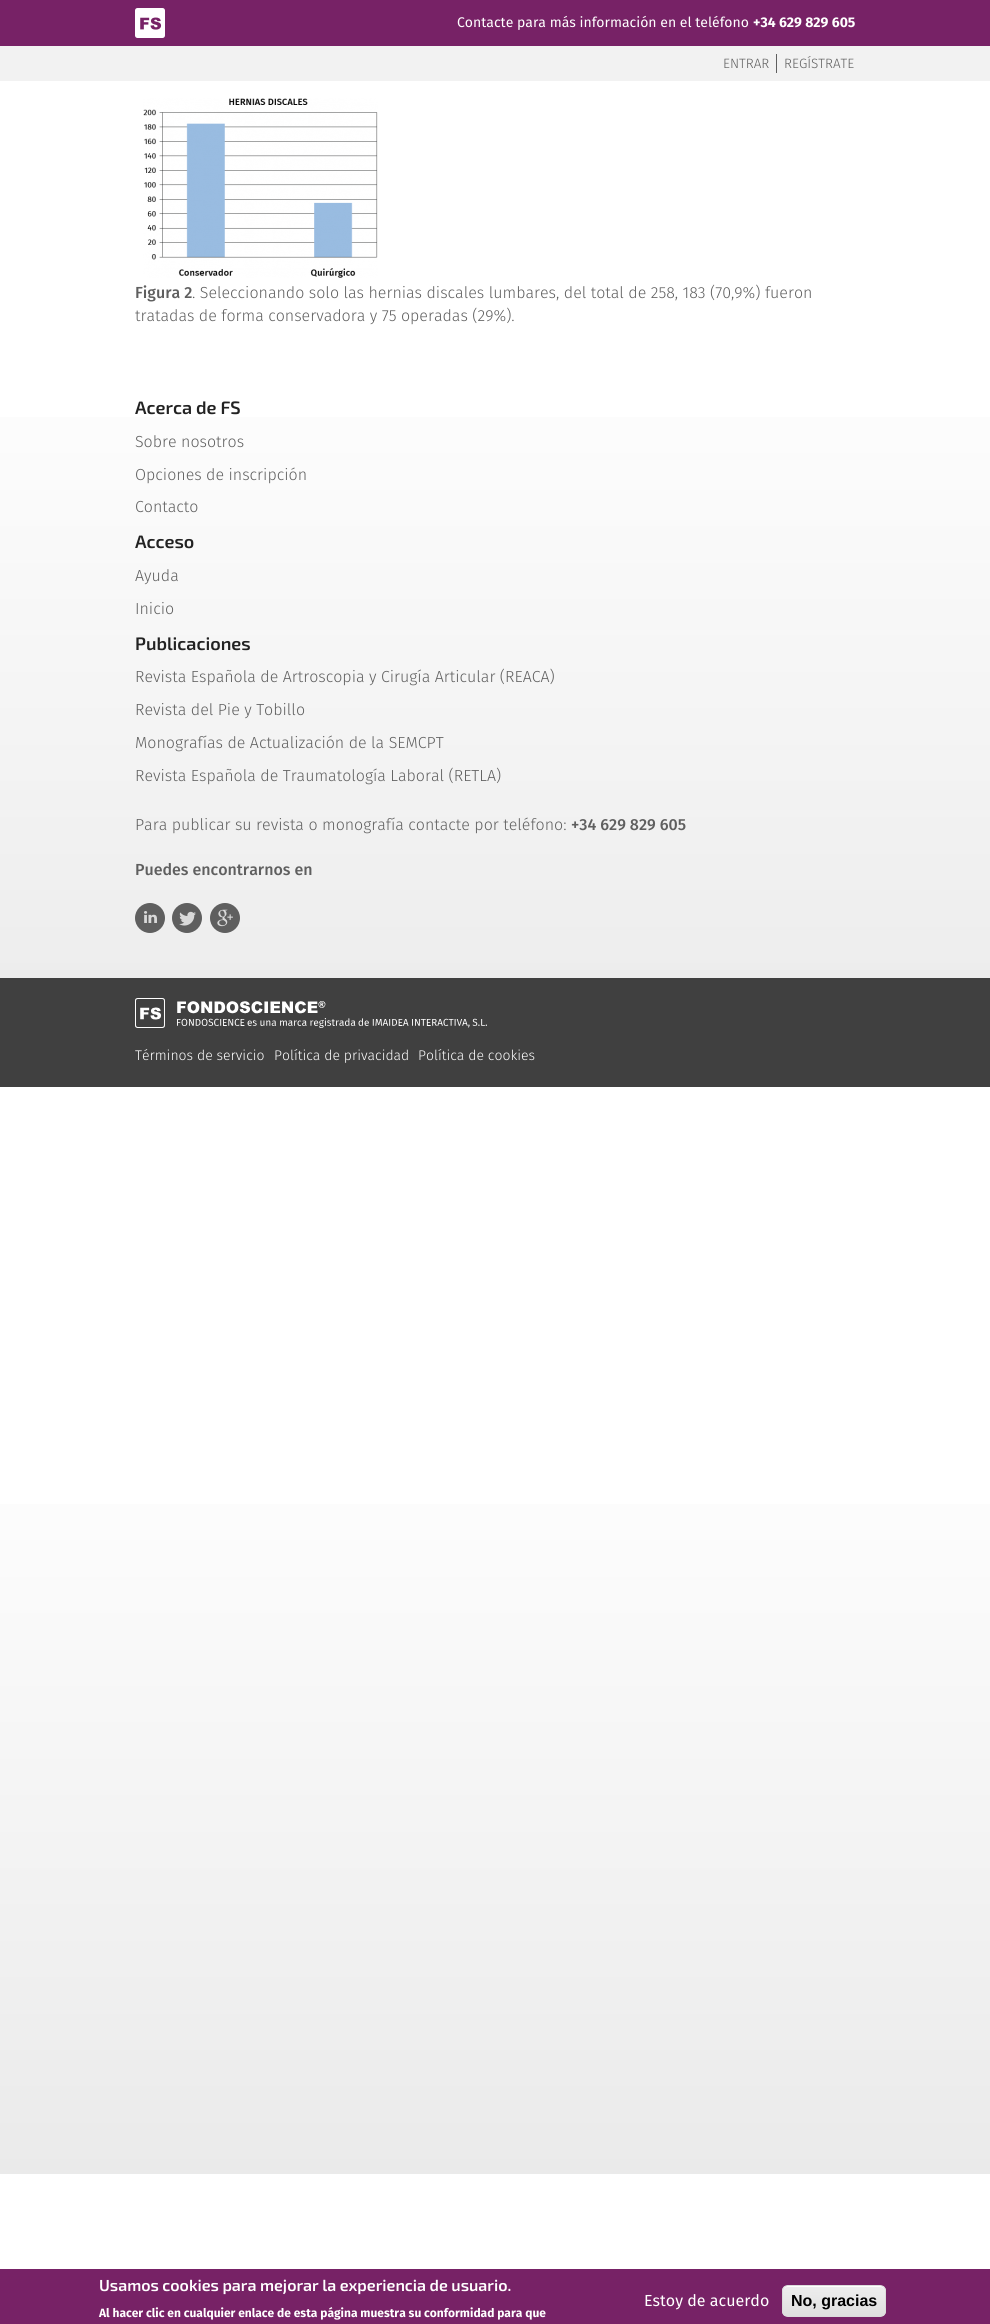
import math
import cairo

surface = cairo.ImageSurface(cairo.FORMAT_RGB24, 990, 2324)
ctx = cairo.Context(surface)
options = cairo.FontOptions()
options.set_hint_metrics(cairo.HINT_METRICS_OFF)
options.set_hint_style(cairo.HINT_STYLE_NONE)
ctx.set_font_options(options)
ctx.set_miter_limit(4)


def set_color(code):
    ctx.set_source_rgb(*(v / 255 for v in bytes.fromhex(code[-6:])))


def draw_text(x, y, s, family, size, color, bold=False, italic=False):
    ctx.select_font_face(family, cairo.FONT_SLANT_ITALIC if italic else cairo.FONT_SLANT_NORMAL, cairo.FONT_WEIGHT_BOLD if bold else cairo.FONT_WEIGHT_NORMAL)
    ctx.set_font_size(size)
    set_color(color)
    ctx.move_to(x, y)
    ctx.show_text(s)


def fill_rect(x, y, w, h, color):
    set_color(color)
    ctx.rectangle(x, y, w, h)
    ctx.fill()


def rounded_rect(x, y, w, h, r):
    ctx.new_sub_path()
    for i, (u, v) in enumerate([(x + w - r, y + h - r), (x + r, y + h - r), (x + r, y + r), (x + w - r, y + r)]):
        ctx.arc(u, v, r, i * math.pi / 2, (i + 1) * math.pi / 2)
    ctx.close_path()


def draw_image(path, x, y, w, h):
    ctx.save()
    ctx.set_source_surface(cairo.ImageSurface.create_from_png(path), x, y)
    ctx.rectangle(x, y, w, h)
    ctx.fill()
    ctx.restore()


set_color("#ffffff")
ctx.paint()
gradient = cairo.LinearGradient(495, 0, 495, 1087)
gradient.add_color_stop_rgba(0.3, 1, 1, 1, 1)
gradient.add_color_stop_rgba(1, 0.918, 0.918, 0.918, 1)
ctx.set_source(gradient)
ctx.rectangle(0, 417, 990, 561)
ctx.fill()
gradient = cairo.LinearGradient(495, 1087, 495, 2174)
gradient.add_color_stop_rgba(0.3, 1, 1, 1, 1)
gradient.add_color_stop_rgba(1, 0.918, 0.918, 0.918, 1)
ctx.set_source(gradient)
ctx.rectangle(0, 1504, 990, 670)
ctx.fill()
fill_rect(0, 0, 990, 46, "#772266")
draw_image("assets/img1.png", 135, 8, 30, 30)
draw_text(457, 27, "Contacte para más información en el teléfono", "Fira Sans", 14, "#ffffff")
draw_text(753, 27, "+34 629 829 605", "Fira Sans", 14, "#ffffff", bold=True)
fill_rect(0, 46, 990, 35, "#f2f2f2")
fill_rect(776, 54, 1, 19, "#5f5f5f")
draw_text(723, 68, "ENTRAR", "Fira Sans Light", 13.5, "#5f5f5f")
draw_text(784, 68, "REGÍSTRATE", "Fira Sans Light", 13.5, "#5f5f5f")
draw_image("assets/img2.png", 143, 98, 235, 180)
draw_text(135, 298, "Figura 2", "Fira Sans Medium", 16, "#5f5f5f")
draw_text(192, 298, ". Seleccionando solo las hernias discales lumbares, del total de 258, 183 (70,9%) fueron", "Fira Sans Light", 16, "#5f5f5f")
draw_text(135, 321, "tratadas de forma conservadora y 75 operadas (29%).", "Fira Sans Light", 16, "#5f5f5f")
draw_text(135, 414, "Acerca de FS", "Exo 2 SemiBold", 18, "#222222")
draw_text(135, 447, "Sobre nosotros", "Fira Sans Light", 16, "#5f5f5f")
draw_text(135, 480, "Opciones de inscripción", "Fira Sans Light", 16, "#5f5f5f")
draw_text(135, 512, "Contacto", "Fira Sans Light", 16, "#5f5f5f")
draw_text(135, 548, "Acceso", "Exo 2 SemiBold", 18, "#222222")
draw_text(135, 581, "Ayuda", "Fira Sans Light", 16, "#5f5f5f")
draw_text(135, 614, "Inicio", "Fira Sans Light", 16, "#5f5f5f")
draw_text(135, 650, "Publicaciones", "Exo 2 SemiBold", 18, "#222222")
draw_text(135, 682, "Revista Española de Artroscopia y Cirugía Articular (REACA)", "Fira Sans Light", 16, "#5f5f5f")
draw_text(135, 715, "Revista del Pie y Tobillo", "Fira Sans Light", 16, "#5f5f5f")
draw_text(135, 748, "Monografías de Actualización de la SEMCPT", "Fira Sans Light", 16, "#5f5f5f")
draw_text(135, 781, "Revista Española de Traumatología Laboral (RETLA)", "Fira Sans Light", 16, "#5f5f5f")
draw_text(135, 830, "Para publicar su revista o monografía contacte por teléfono:", "Fira Sans Light", 16, "#5f5f5f")
draw_text(571, 830, "+34 629 829 605", "Fira Sans Medium", 16, "#5f5f5f")
draw_text(135, 875, "Puedes encontrarnos en", "Fira Sans Medium", 16, "#5f5f5f")
draw_image("assets/img3.png", 135, 903, 30, 30)
draw_image("assets/img4.png", 172, 903, 30, 30)
draw_image("assets/img5.png", 210, 903, 30, 30)
fill_rect(0, 978, 990, 109, "#404040")
draw_image("assets/img6.png", 135, 998, 352, 30)
draw_text(135, 1060, "Términos de servicio", "Fira Sans Light", 14, "#ffffff")
draw_text(274, 1060, "Política de privacidad", "Fira Sans Light", 14, "#ffffff")
draw_text(418, 1060, "Política de cookies", "Fira Sans Light", 14, "#ffffff")
fill_rect(0, 2269, 990, 55, "#772266")
draw_text(99, 2291, "Usamos cookies para mejorar la experiencia de usuario.", "Exo 2 SemiBold", 16, "#ffffff")
draw_text(99, 2317, "Al hacer clic en cualquier enlace de esta página muestra su conformidad para que", "Fira Sans", 12, "#ffffff", bold=True)
draw_text(644, 2306, "Estoy de acuerdo", "Fira Sans", 16, "#ffffff")
ctx.save()
rounded_rect(782, 2285, 104, 32, 6)
ctx.clip()
gradient = cairo.LinearGradient(834, 2286, 834, 2316)
gradient.add_color_stop_rgba(0.05, 0.929, 0.929, 0.929, 1)
gradient.add_color_stop_rgba(1, 0.875, 0.875, 0.875, 1)
ctx.set_source(gradient)
ctx.rectangle(782, 2286, 104, 30)
ctx.fill()
ctx.restore()
ctx.new_path()
ctx.move_to(788, 2287)
ctx.line_to(880, 2287)
ctx.curve_to(883, 2287, 885, 2289, 885, 2292)
ctx.curve_to(885, 2282, 870, 2286, 865, 2286)
ctx.line_to(803, 2286)
ctx.curve_to(798, 2286, 783, 2282, 783, 2292)
ctx.curve_to(783, 2289, 785, 2287, 788, 2287)
ctx.close_path()
ctx.fill()
rounded_rect(782.5, 2285.5, 103, 31, 5.5)
set_color("#dcdcdc")
ctx.set_line_width(1)
ctx.stroke()
draw_text(791, 2306, "No, gracias", "Liberation Sans", 16, "#000000", bold=True)
surface.write_to_png("output.png")
